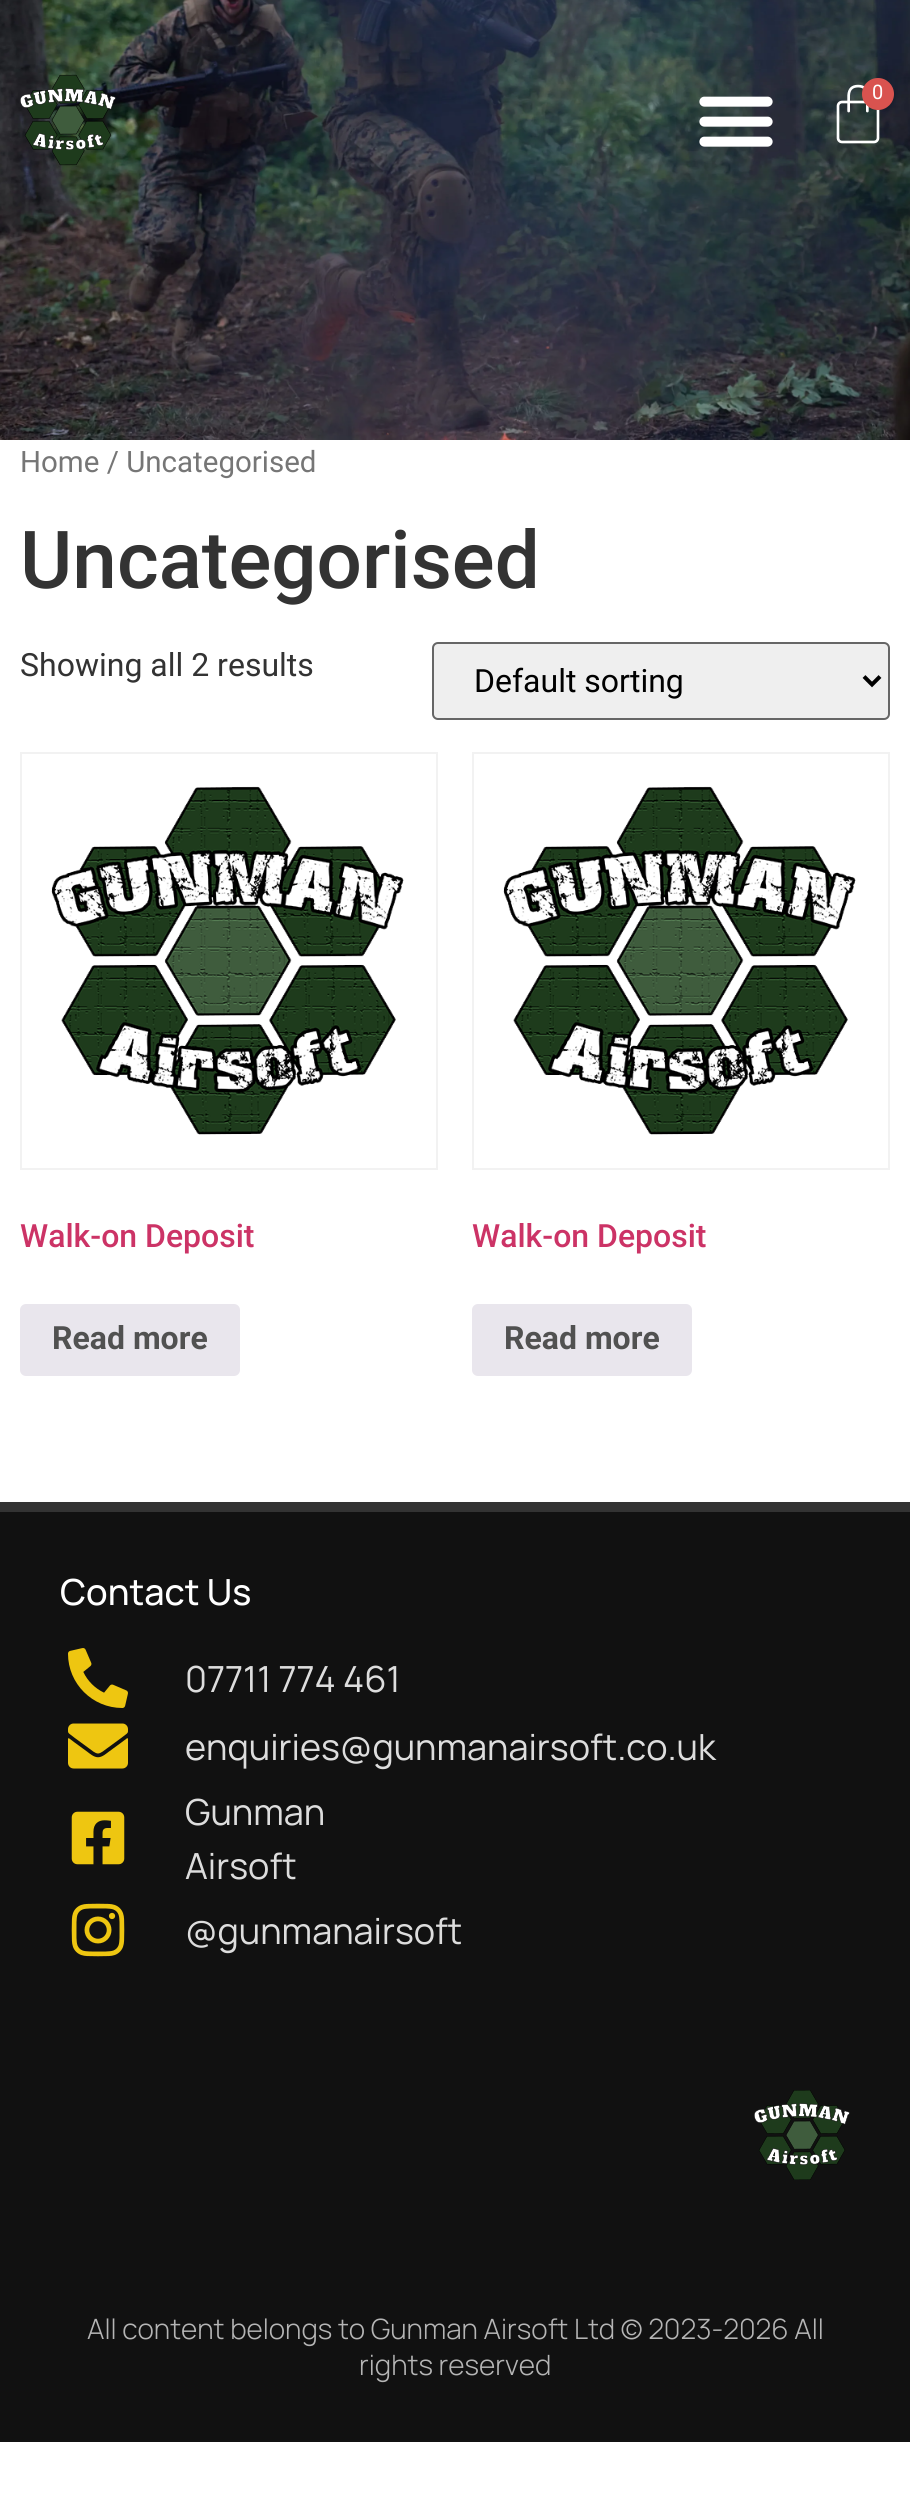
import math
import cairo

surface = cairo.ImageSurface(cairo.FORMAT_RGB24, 910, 2500)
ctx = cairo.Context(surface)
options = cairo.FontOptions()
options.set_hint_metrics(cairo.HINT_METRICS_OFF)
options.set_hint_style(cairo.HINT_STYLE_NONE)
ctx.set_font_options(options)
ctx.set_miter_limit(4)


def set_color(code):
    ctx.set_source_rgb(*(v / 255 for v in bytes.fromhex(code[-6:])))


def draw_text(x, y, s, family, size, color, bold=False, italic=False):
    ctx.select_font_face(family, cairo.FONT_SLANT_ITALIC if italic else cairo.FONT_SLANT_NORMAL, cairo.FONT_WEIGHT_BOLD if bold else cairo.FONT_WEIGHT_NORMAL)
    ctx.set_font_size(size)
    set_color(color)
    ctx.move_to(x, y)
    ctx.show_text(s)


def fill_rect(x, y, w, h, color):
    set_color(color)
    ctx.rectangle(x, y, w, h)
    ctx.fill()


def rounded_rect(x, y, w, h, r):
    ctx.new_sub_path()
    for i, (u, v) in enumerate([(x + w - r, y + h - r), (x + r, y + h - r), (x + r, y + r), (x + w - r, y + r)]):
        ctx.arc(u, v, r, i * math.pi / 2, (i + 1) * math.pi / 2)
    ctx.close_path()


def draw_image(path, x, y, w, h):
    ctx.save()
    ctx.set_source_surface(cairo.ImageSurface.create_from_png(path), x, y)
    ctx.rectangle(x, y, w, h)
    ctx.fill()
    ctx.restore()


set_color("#ffffff")
ctx.paint()
draw_image("assets/img1.png", 0, 0, 910, 440)
draw_image("assets/img2.png", 20, 74, 96, 92)
ctx.set_source_rgba(0, 0, 0, 0.05)
ctx.rectangle(676, 60, 120, 120)
ctx.fill()
draw_image("assets/img3.png", 699, 96, 74, 51)
draw_image("assets/img4.png", 836, 84, 44, 60)
set_color("#d9534f")
ctx.arc(878, 94, 16, 0, 2 * math.pi)
ctx.fill()
draw_text(872, 99, "0", "Roboto", 20, "#ffffff")
draw_text(20, 472, "Home / Uncategorised", "Roboto", 29.5, "#767676")
draw_text(20, 588, "Uncategorised", "Roboto Medium", 80, "#333333")
draw_text(20, 676, "Showing all 2 results", "Roboto", 32, "#333333")
set_color("#efefef")
rounded_rect(433, 643, 456, 76, 5)
ctx.fill_preserve()
set_color("#666666")
ctx.stroke()
ctx.new_path()
ctx.move_to(864, 676.5)
ctx.line_to(872, 684.5)
ctx.line_to(880, 676.5)
set_color("#000000")
ctx.set_line_width(4)
ctx.stroke()
draw_text(474, 692, "Default sorting", "Roboto", 32, "#000000")
ctx.rectangle(21, 753, 416, 416)
set_color("#f2f2f2")
ctx.set_line_width(2)
ctx.stroke()
draw_image("assets/img5.png", 51, 786, 353, 349)
draw_text(20, 1247, "Walk-on Deposit", "Roboto Medium", 32, "#cc3366")
set_color("#e9e6ed")
rounded_rect(20, 1304, 220, 72, 6)
ctx.fill()
draw_text(52, 1349, "Read more", "Roboto", 32, "#515151", bold=True)
ctx.rectangle(473, 753, 416, 416)
set_color("#f2f2f2")
ctx.stroke()
draw_image("assets/img6.png", 503, 786, 353, 349)
draw_text(472, 1247, "Walk-on Deposit", "Roboto Medium", 32, "#cc3366")
set_color("#e9e6ed")
rounded_rect(472, 1304, 220, 72, 6)
ctx.fill()
draw_text(504, 1349, "Read more", "Roboto", 32, "#515151", bold=True)
fill_rect(0, 1512, 910, 930, "#111111")
fill_rect(0, 1502, 910, 10, "#333333")
draw_text(60, 1605, "Contact Us", "Manrope Medium", 36, "#ffffff")
draw_image("assets/img7.png", 68, 1648, 60, 60)
draw_text(185, 1692, "07711 774 461", "Manrope", 36, "#dddddd")
draw_image("assets/img8.png", 68, 1723, 60, 46)
draw_text(185, 1760, "enquiries@gunmanairsoft.co.uk", "Manrope", 36, "#dddddd")
draw_image("assets/img9.png", 71, 1811, 54, 54)
draw_text(185, 1825, "Gunman", "Manrope", 36, "#dddddd")
draw_text(185, 1879, "Airsoft", "Manrope", 36, "#dddddd")
draw_image("assets/img10.png", 71, 1903, 54, 54)
draw_text(185, 1944, "@gunmanairsoft", "Manrope", 36, "#dddddd")
draw_image("assets/img11.png", 754, 2090, 96, 90)
draw_text(87, 2339, "All content belongs to Gunman Airsoft Ltd © 2023-2026 All", "Manrope Light", 28, "#b5b5b5")
draw_text(359, 2375, "rights reserved", "Manrope Light", 28, "#b5b5b5")
surface.write_to_png("output.png")
